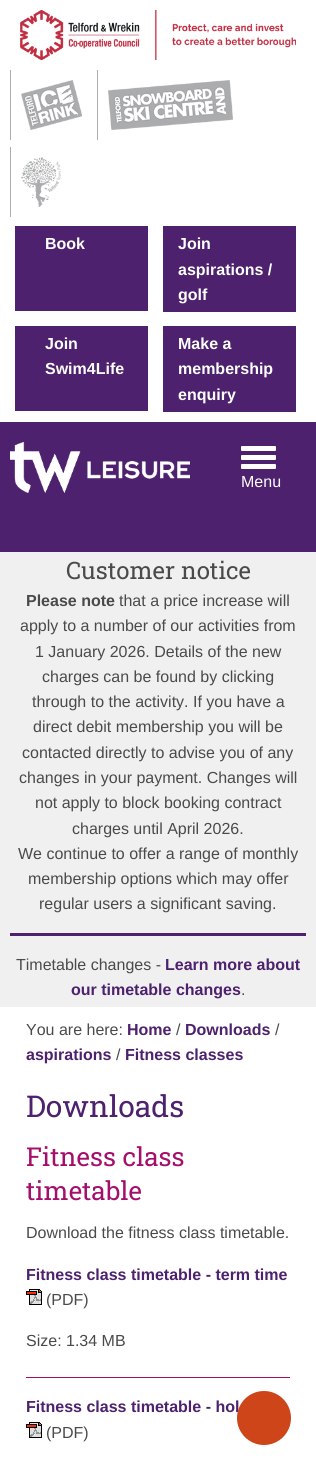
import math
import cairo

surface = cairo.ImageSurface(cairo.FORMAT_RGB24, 316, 1467)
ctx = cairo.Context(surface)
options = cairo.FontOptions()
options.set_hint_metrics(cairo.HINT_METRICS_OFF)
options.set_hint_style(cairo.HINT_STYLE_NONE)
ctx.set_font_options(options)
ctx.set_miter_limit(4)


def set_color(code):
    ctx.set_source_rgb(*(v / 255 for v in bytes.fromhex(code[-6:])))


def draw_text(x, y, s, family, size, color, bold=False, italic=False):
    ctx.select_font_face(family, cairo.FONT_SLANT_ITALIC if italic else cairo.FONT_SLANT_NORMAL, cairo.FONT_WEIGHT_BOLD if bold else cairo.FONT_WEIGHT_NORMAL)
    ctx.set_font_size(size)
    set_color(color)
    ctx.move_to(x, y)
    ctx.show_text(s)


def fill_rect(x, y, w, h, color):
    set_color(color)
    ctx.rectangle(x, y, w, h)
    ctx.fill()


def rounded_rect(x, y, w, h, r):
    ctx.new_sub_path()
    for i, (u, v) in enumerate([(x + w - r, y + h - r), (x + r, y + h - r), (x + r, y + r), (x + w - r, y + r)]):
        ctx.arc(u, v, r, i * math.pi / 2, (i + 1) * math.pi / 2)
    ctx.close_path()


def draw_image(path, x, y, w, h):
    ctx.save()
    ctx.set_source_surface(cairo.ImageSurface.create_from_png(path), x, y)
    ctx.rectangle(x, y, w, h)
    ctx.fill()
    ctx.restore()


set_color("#ffffff")
ctx.paint()
draw_image("assets/img1.png", 20, 10, 276, 50)
fill_rect(10, 70, 1, 70, "#adadad")
draw_image("assets/img2.png", 21, 80, 61, 50)
fill_rect(97, 70, 1, 70, "#adadad")
draw_image("assets/img3.png", 108, 80, 125, 50)
fill_rect(10, 147, 1, 70, "#adadad")
draw_image("assets/img4.png", 21, 157, 40, 50)
fill_rect(15, 226, 133, 85, "#4d216d")
draw_text(45, 249, "Book", "Liberation Sans", 16, "#ffffff", bold=True)
fill_rect(163, 226, 133, 86, "#4d216d")
draw_text(178, 249, "Join", "Liberation Sans", 16, "#ffffff", bold=True)
draw_text(178, 275, "aspirations /", "Liberation Sans", 16, "#ffffff", bold=True)
draw_text(178, 300, "golf", "Liberation Sans", 16, "#ffffff", bold=True)
fill_rect(15, 326, 133, 85, "#4d216d")
draw_text(45, 349, "Join", "Liberation Sans", 16, "#ffffff", bold=True)
draw_text(45, 374, "Swim4Life", "Liberation Sans", 16, "#ffffff", bold=True)
fill_rect(163, 326, 133, 86, "#4d216d")
draw_text(178, 349, "Make a", "Liberation Sans", 16, "#ffffff", bold=True)
draw_text(178, 374, "membership", "Liberation Sans", 16, "#ffffff", bold=True)
draw_text(178, 400, "enquiry", "Liberation Sans", 16, "#ffffff", bold=True)
fill_rect(0, 422, 316, 130, "#4d216d")
draw_image("assets/img5.png", 10, 442, 180, 51)
set_color("#ffffff")
rounded_rect(241, 446, 35, 5, 1)
ctx.fill()
rounded_rect(241, 455, 35, 5, 1)
ctx.fill()
rounded_rect(241, 464, 35, 5, 1)
ctx.fill()
draw_text(241, 487, "Menu", "Liberation Sans", 16, "#ffffff")
fill_rect(0, 552, 316, 455, "#f0f0f0")
draw_text(66, 579, "Customer notice", "Roboto Slab", 24, "#4a4a4a")
draw_text(26, 606, "Please note", "Liberation Sans", 16, "#4a4a4a", bold=True)
draw_text(119, 606, "that a price increase will", "Liberation Sans", 16, "#4a4a4a")
draw_text(20, 631, "apply to a number of our activities from", "Liberation Sans", 16, "#4a4a4a")
draw_text(35, 657, "1 January 2026. Details of the new", "Liberation Sans", 16, "#4a4a4a")
draw_text(42, 682, "charges can be found by clicking", "Liberation Sans", 16, "#4a4a4a")
draw_text(32, 707, "through to the activity. If you have a", "Liberation Sans", 16, "#4a4a4a")
draw_text(33, 732, "direct debit membership you will be", "Liberation Sans", 16, "#4a4a4a")
draw_text(22, 758, "contacted directly to advise you of any", "Liberation Sans", 16, "#4a4a4a")
draw_text(19, 783, "changes in your payment. Changes will", "Liberation Sans", 16, "#4a4a4a")
draw_text(35, 808, "not apply to block booking contract", "Liberation Sans", 16, "#4a4a4a")
draw_text(72, 834, "charges until April 2026.", "Liberation Sans", 16, "#4a4a4a")
draw_text(18, 859, "We continue to offer a range of monthly", "Liberation Sans", 16, "#4a4a4a")
draw_text(28, 884, "membership options which may offer", "Liberation Sans", 16, "#4a4a4a")
draw_text(39, 909, "regular users a significant saving.", "Liberation Sans", 16, "#4a4a4a")
fill_rect(10, 933, 296, 3, "#4d216d")
draw_text(16, 970, "Timetable changes -", "Liberation Sans", 16, "#4a4a4a")
draw_text(165, 970, "Learn more about", "Liberation Sans", 16, "#4d216d", bold=True)
draw_text(71, 995, "our timetable changes", "Liberation Sans", 16, "#4d216d", bold=True)
draw_text(241, 995, ".", "Liberation Sans", 16, "#4a4a4a")
draw_text(26, 1035, "You are here:", "Liberation Sans", 16, "#4a4a4a")
draw_text(127, 1035, "Home", "Liberation Sans", 16, "#4d216d", bold=True)
draw_text(176, 1035, "/", "Liberation Sans", 16, "#4a4a4a")
draw_text(185, 1035, "Downloads", "Liberation Sans", 16, "#4d216d", bold=True)
draw_text(275, 1035, "/", "Liberation Sans", 16, "#4a4a4a")
draw_text(26, 1060, "aspirations", "Liberation Sans", 16, "#4d216d", bold=True)
draw_text(116, 1060, "/", "Liberation Sans", 16, "#4a4a4a")
draw_text(125, 1060, "Fitness classes", "Liberation Sans", 16, "#4d216d", bold=True)
draw_text(26, 1117, "Downloads", "Roboto Slab", 30, "#4d216d")
draw_text(26, 1166, "Fitness class", "Roboto Slab", 26, "#a40f6c")
draw_text(26, 1200, "timetable", "Roboto Slab", 26, "#a40f6c")
draw_text(26, 1238, "Download the fitness class timetable.", "Liberation Sans", 16, "#4a4a4a")
fill_rect(26, 1377, 264, 1, "#a40f6c")
draw_text(26, 1280, "Fitness class timetable - term time", "Liberation Sans", 16, "#4d216d", bold=True)
draw_image("assets/img6.png", 26, 1289, 16, 16)
draw_text(46, 1305, "(PDF)", "Liberation Sans", 16, "#4a4a4a")
draw_text(26, 1346, "Size: 1.34 MB", "Liberation Sans", 16, "#4a4a4a")
draw_text(26, 1412, "Fitness class timetable - hol", "Liberation Sans", 16, "#4d216d", bold=True)
draw_image("assets/img6.png", 26, 1422, 16, 16)
draw_text(46, 1438, "(PDF)", "Liberation Sans", 16, "#4a4a4a")
set_color("#cd4518")
ctx.new_path()
ctx.arc(264, 1418, 27, 0, 2 * math.pi)
ctx.fill()
surface.write_to_png("output.png")
